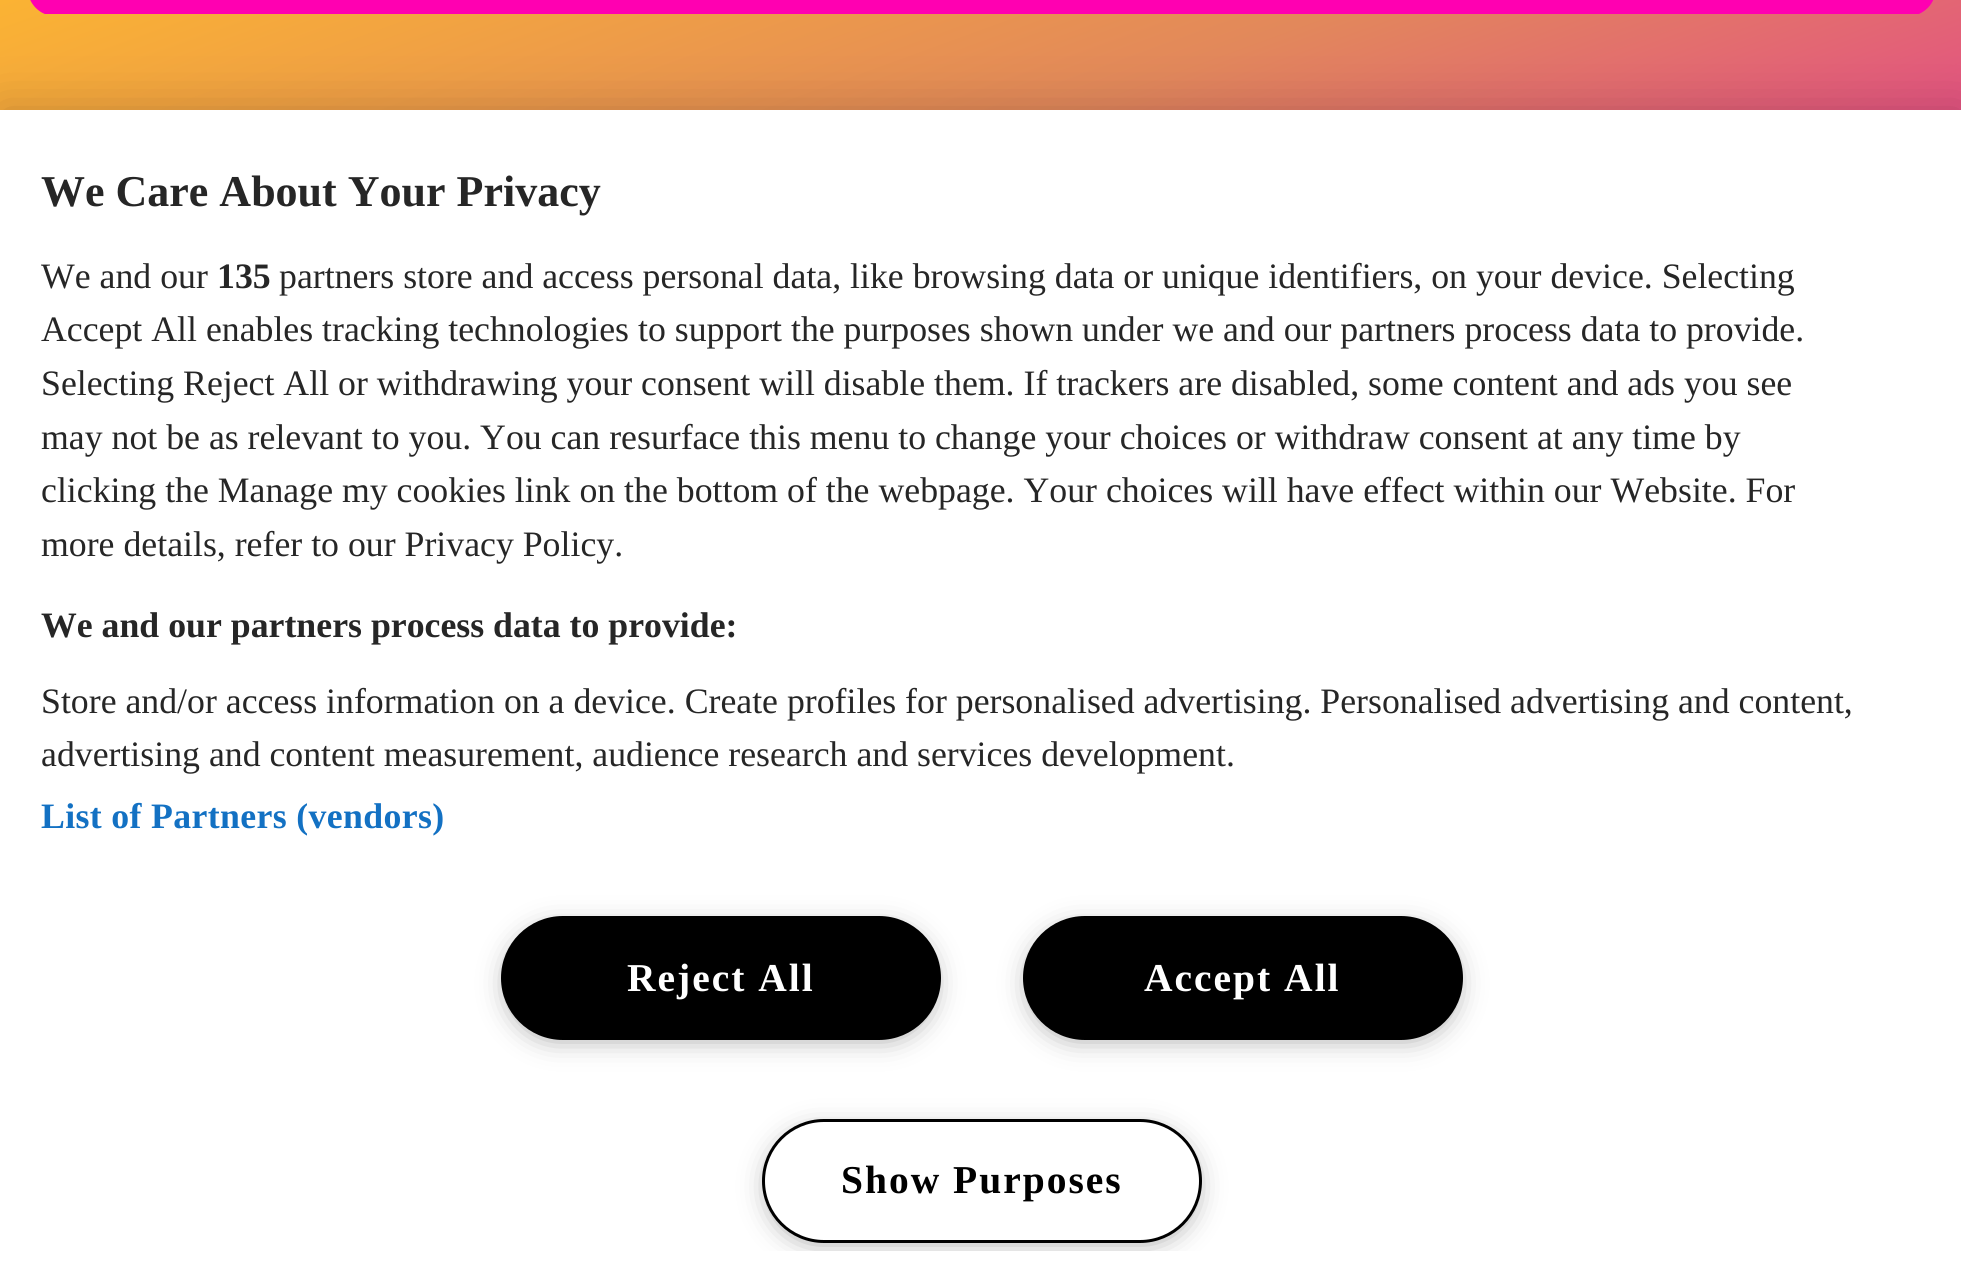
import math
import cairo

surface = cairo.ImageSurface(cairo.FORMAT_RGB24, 1961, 1278)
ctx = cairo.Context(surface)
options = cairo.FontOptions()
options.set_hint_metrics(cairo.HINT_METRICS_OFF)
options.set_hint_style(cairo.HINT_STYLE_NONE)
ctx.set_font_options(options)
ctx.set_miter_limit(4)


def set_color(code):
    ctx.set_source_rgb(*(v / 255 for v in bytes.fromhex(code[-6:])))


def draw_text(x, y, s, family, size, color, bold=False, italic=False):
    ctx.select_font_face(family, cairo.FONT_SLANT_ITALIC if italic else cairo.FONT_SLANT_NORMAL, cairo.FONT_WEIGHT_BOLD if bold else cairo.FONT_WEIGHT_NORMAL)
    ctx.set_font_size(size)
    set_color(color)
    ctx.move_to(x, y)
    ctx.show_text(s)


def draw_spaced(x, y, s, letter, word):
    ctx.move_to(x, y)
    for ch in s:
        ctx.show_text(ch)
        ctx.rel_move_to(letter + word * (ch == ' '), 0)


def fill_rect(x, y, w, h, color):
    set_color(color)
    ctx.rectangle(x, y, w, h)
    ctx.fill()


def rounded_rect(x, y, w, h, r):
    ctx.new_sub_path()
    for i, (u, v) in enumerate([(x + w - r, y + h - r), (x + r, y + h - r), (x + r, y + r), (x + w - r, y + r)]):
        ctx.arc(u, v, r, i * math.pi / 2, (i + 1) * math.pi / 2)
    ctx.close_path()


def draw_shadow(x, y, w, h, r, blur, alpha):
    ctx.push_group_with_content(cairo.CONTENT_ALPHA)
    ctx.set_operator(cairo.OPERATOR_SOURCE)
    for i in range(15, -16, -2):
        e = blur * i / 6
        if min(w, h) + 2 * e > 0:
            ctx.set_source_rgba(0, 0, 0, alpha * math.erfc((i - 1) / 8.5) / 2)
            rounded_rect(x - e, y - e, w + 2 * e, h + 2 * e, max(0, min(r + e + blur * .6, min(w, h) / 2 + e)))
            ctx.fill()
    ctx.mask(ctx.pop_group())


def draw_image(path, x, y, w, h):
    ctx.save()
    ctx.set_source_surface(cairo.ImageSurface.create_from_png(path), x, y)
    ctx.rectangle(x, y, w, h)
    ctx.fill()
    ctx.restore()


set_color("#ffffff")
ctx.paint()
gradient = cairo.LinearGradient(661, -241, 1302, 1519)
gradient.add_color_stop_rgba(0, 0.984, 0.702, 0.2, 1)
gradient.add_color_stop_rgba(0.25, 0.886, 0.533, 0.357, 1)
gradient.add_color_stop_rgba(0.5, 0.894, 0.22, 0.584, 1)
gradient.add_color_stop_rgba(0.75, 0.235, 0.345, 0.612, 1)
gradient.add_color_stop_rgba(1, 0.11, 0.145, 0.369, 1)
ctx.set_source(gradient)
ctx.rectangle(0, 0, 1961, 110)
ctx.fill()
draw_image("assets/img1.png", 30, 0, 1904, 14)
set_color("#000000")
draw_shadow(0, 110, 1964, 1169, 0, 25, 0.2)
fill_rect(0, 110, 1961, 1168, "#ffffff")
draw_text(41, 206, "We Care About Your Privacy", "Liberation Serif", 44, "#262626", bold=True)
draw_text(41, 288, "We and our", "Liberation Serif", 35.77, "#262626")
draw_text(217, 288, "135", "Liberation Serif", 35.77, "#262626", bold=True)
draw_text(279, 288, "partners store and access personal data, like browsing data or unique identifiers, on your device. Selecting", "Liberation Serif", 35.77, "#262626")
draw_text(41, 341, "Accept All enables tracking technologies to support the purposes shown under we and our partners process data to provide.", "Liberation Serif", 35.77, "#262626")
draw_text(41, 395, "Selecting Reject All or withdrawing your consent will disable them. If trackers are disabled, some content and ads you see", "Liberation Serif", 35.77, "#262626")
draw_text(41, 449, "may not be as relevant to you. You can resurface this menu to change your choices or withdraw consent at any time by", "Liberation Serif", 35.77, "#262626")
draw_text(41, 502, "clicking the Manage my cookies link on the bottom of the webpage. Your choices will have effect within our Website. For", "Liberation Serif", 35.77, "#262626")
draw_text(41, 556, "more details, refer to our Privacy Policy.", "Liberation Serif", 35.77, "#262626")
draw_text(41, 637, "We and our partners process data to provide:", "Liberation Serif", 35.77, "#262626", bold=True)
draw_text(41, 713, "Store and/or access information on a device. Create profiles for personalised advertising. Personalised advertising and content,", "Liberation Serif", 35.77, "#262626")
draw_text(41, 766, "advertising and content measurement, audience research and services development.", "Liberation Serif", 35.77, "#262626")
ctx.select_font_face("Liberation Serif", cairo.FONT_SLANT_NORMAL, cairo.FONT_WEIGHT_BOLD)
set_color("#1371c3")
draw_spaced(41, 828, "List of Partners (vendors)", 0.35, 0)
set_color("#999999")
draw_shadow(509, 930, 423, 107, 53.5, 14, 1)
set_color("#000000")
rounded_rect(502.5, 917.5, 437, 121, 60.5)
ctx.fill_preserve()
ctx.set_line_width(3)
ctx.stroke()
ctx.set_font_size(39.5)
set_color("#ffffff")
draw_spaced(627, 991, "Reject All", 2, 0)
set_color("#999999")
draw_shadow(1031, 930, 424, 107, 53.5, 14, 1)
set_color("#000000")
rounded_rect(1024.5, 917.5, 437, 121, 60.5)
ctx.fill_preserve()
ctx.stroke()
set_color("#ffffff")
draw_spaced(1144, 991, "Accept All", 2, 0)
ctx.save()
ctx.rectangle(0, 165, 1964, 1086)
ctx.clip()
set_color("#999999")
draw_shadow(770, 1133, 424, 107, 53.5, 14, 1)
ctx.restore()
rounded_rect(763.5, 1120.5, 437, 121, 60.5)
ctx.fill_preserve()
set_color("#000000")
ctx.stroke()
draw_spaced(841, 1193, "Show Purposes", 2, 0)
surface.write_to_png("output.png")
